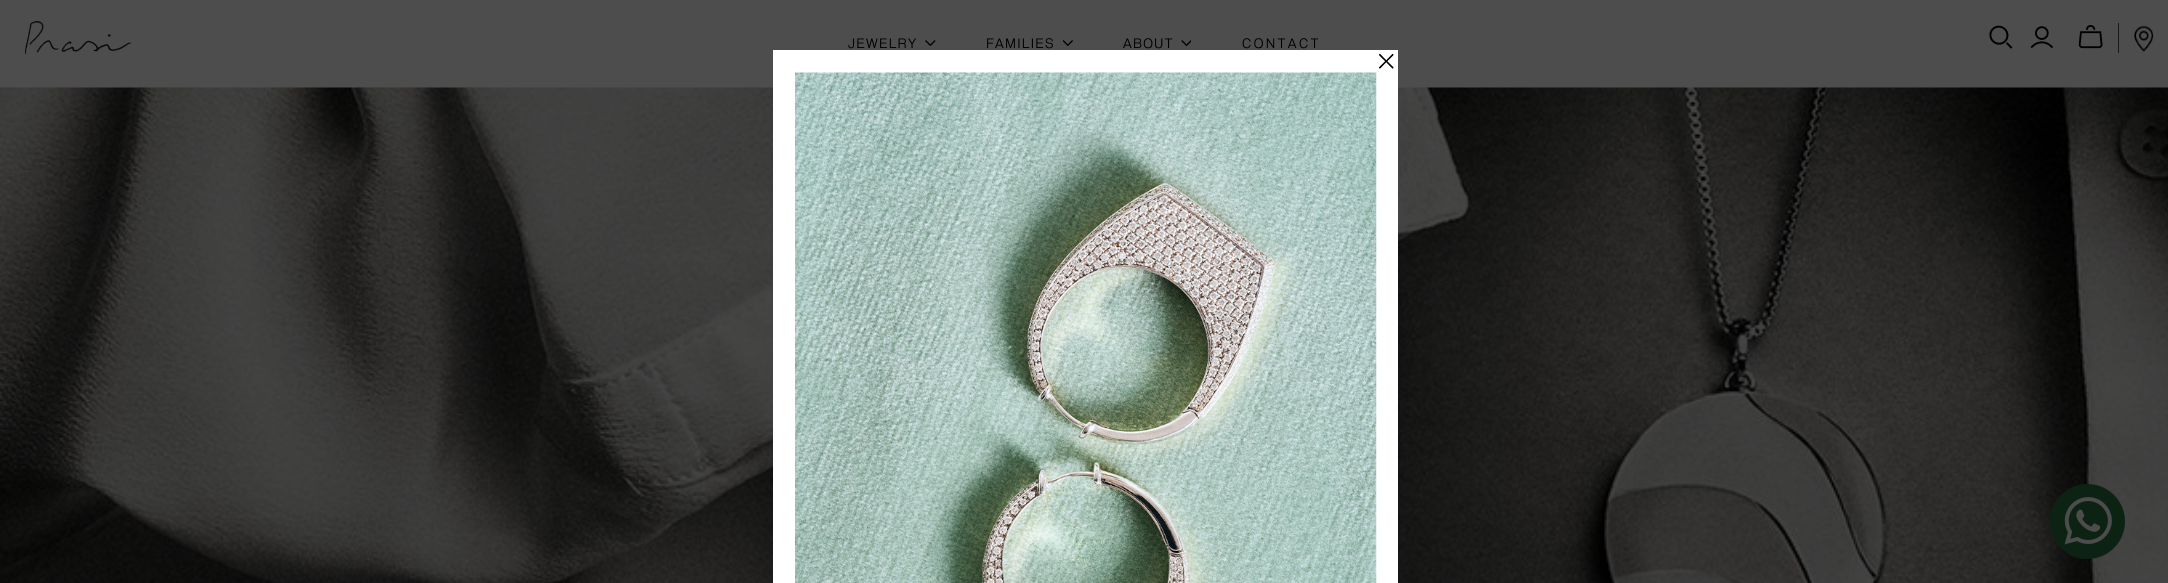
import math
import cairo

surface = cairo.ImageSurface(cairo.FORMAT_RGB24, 2168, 583)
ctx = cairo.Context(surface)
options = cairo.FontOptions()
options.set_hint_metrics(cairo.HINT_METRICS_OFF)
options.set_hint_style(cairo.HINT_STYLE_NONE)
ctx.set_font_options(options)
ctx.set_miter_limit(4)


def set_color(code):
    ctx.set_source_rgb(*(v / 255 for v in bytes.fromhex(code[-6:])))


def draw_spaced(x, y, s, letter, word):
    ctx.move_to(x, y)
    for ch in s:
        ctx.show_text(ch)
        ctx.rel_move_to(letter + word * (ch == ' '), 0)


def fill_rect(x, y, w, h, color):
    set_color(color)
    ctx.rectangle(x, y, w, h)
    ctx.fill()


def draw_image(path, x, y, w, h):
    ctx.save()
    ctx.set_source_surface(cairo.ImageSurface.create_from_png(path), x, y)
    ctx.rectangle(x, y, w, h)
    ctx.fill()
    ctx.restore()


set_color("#4d4d4d")
ctx.paint()
draw_image("assets/img1.png", 25, 21, 106, 33)
ctx.select_font_face("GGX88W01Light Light")
ctx.set_font_size(13.75)
set_color("#000000")
draw_spaced(848, 48, "JEWELRY", 1.25, 0)
draw_image("assets/img2.png", 925, 40, 11, 6)
draw_spaced(986, 48, "FAMILIES", 1.25, 0)
draw_image("assets/img3.png", 1063, 40, 10, 6)
draw_spaced(1123, 48, "ABOUT", 1.25, 0)
draw_image("assets/img4.png", 1181, 40, 10, 6)
draw_spaced(1242, 48, "CONTACT", 2.5, 0)
draw_image("assets/img5.png", 1989, 25, 24, 24)
draw_image("assets/img6.png", 2030, 26, 24, 23)
draw_image("assets/img7.png", 2078, 25, 25, 24)
fill_rect(2118, 23, 1, 30, "#171a19")
draw_image("assets/img8.png", 2134, 25, 20, 27)
draw_image("assets/img10.png", 0, 87, 2168, 496)
draw_image("assets/img9.png", 773, 50, 625, 533)
set_color("#0c2313")
ctx.arc(2087.5, 521.5, 37.5, 0, 2 * math.pi)
ctx.fill()
draw_image("assets/img11.png", 2064, 497, 48, 48)
surface.write_to_png("output.png")
